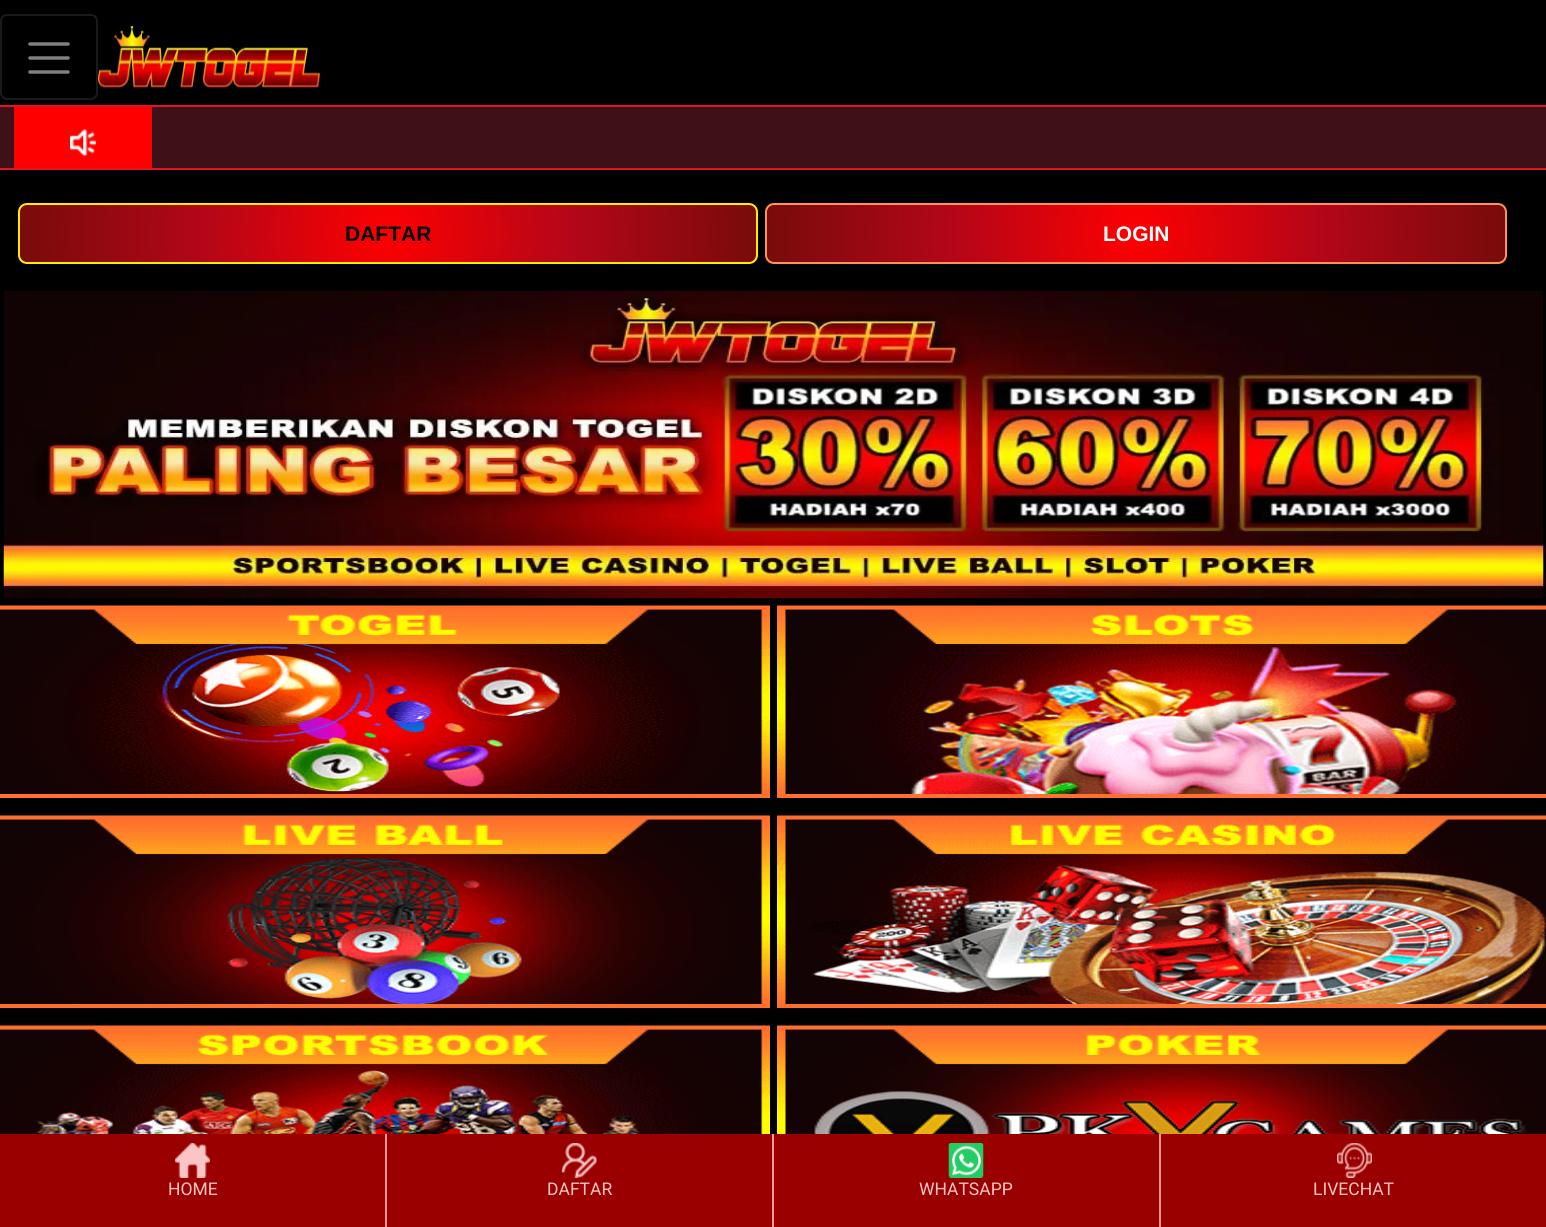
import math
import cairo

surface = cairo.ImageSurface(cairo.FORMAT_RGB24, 1546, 1227)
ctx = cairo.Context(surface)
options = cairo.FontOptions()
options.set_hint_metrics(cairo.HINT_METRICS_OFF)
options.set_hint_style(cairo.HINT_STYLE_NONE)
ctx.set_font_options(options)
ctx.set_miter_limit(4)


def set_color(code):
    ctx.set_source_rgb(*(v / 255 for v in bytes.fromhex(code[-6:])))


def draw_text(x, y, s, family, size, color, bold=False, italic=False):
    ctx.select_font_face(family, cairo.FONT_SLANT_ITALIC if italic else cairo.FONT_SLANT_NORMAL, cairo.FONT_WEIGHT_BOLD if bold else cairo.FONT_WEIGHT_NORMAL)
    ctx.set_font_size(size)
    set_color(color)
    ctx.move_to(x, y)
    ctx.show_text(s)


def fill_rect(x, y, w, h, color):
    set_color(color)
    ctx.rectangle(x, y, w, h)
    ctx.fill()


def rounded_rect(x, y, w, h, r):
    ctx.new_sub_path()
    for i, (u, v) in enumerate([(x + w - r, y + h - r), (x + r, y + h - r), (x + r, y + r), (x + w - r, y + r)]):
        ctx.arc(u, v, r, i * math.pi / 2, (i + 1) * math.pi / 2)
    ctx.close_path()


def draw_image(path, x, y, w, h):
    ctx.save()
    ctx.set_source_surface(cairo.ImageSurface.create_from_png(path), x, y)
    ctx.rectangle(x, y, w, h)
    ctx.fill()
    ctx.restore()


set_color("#000000")
ctx.paint()
rounded_rect(1, 15, 96, 84, 6)
set_color("#1a1a1a")
ctx.stroke()
ctx.new_path()
ctx.move_to(30, 44)
ctx.line_to(68, 44)
ctx.move_to(30, 58)
ctx.line_to(68, 58)
ctx.move_to(30, 72)
ctx.line_to(68, 72)
set_color("#808080")
ctx.set_line_width(3.5)
ctx.set_line_cap(cairo.LINE_CAP_ROUND)
ctx.stroke()
draw_image("assets/img1.png", 98, 26, 223, 62)
fill_rect(0, 105, 1546, 2, "#e21325")
fill_rect(0, 168, 1546, 2, "#e21325")
fill_rect(0, 107, 1546, 61, "#3e1018")
fill_rect(14, 107, 138, 61, "#ff0000")
draw_image("assets/img2.png", 70, 129, 27, 28)
ctx.save()
rounded_rect(18, 203, 740, 61, 9)
ctx.clip()
gradient = cairo.RadialGradient(388, 234, 0, 388, 234, 370)
gradient.add_color_stop_rgba(0, 0.996, 0, 0, 1)
gradient.add_color_stop_rgba(0.49, 0.71, 0.024, 0.094, 1)
gradient.add_color_stop_rgba(1, 0.471, 0.043, 0.043, 1)
ctx.set_source(gradient)
ctx.rectangle(19, 205, 737, 58)
ctx.fill()
ctx.restore()
rounded_rect(19, 204, 738, 59, 8)
set_color("#ffed00")
ctx.set_line_width(2)
ctx.set_line_cap(cairo.LINE_CAP_BUTT)
ctx.stroke()
draw_text(345, 241, "DAFTAR", "Liberation Sans", 21, "#000000", bold=True)
ctx.save()
rounded_rect(765, 203, 742, 61, 9)
ctx.clip()
gradient = cairo.RadialGradient(1136, 234, 0, 1136, 234, 370)
gradient.add_color_stop_rgba(0, 0.996, 0, 0, 1)
gradient.add_color_stop_rgba(0.49, 0.71, 0.024, 0.094, 1)
gradient.add_color_stop_rgba(1, 0.471, 0.043, 0.043, 1)
ctx.set_source(gradient)
ctx.rectangle(767, 205, 738, 58)
ctx.fill()
ctx.restore()
rounded_rect(766, 204, 740, 59, 8)
set_color("#ff925c")
ctx.stroke()
draw_text(1103, 241, "LOGIN", "Liberation Sans", 21, "#ffffff", bold=True)
draw_image("assets/img3.png", 3, 290, 1541, 309)
draw_image("assets/img4.png", 0, 605, 770, 193)
draw_image("assets/img5.png", 777, 605, 769, 193)
draw_image("assets/img6.png", 0, 815, 770, 193)
draw_image("assets/img7.png", 777, 815, 769, 193)
draw_image("assets/img8.png", 0, 1025, 770, 109)
draw_image("assets/img9.png", 777, 1025, 769, 109)
fill_rect(0, 1134, 1546, 93, "#9a0000")
fill_rect(385, 1134, 2, 93, "#f59696")
draw_image("assets/img10.png", 175, 1143, 35, 35)
draw_text(168, 1195, "HOME", "Roboto", 17.5, "#fbc5c5")
fill_rect(772, 1134, 2, 93, "#f59696")
draw_image("assets/img11.png", 561, 1143, 36, 35)
draw_text(547, 1195, "DAFTAR", "Roboto", 17.5, "#fbc5c5")
fill_rect(1159, 1134, 2, 93, "#f59696")
draw_image("assets/img12.png", 948, 1143, 36, 35)
draw_text(919, 1195, "WHATSAPP", "Roboto", 17.5, "#fbc5c5")
draw_image("assets/img13.png", 1337, 1143, 35, 35)
draw_text(1313, 1195, "LIVECHAT", "Roboto", 17.5, "#fbc5c5")
surface.write_to_png("output.png")
